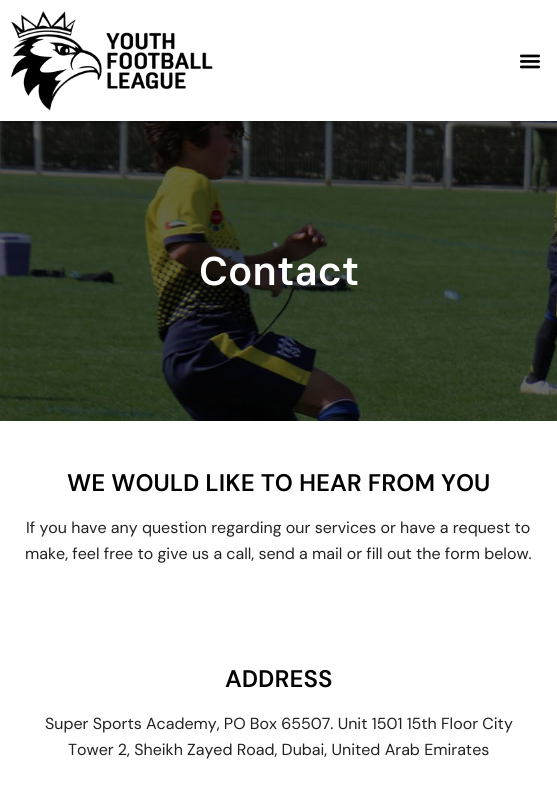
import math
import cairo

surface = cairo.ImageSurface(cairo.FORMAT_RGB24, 557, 803)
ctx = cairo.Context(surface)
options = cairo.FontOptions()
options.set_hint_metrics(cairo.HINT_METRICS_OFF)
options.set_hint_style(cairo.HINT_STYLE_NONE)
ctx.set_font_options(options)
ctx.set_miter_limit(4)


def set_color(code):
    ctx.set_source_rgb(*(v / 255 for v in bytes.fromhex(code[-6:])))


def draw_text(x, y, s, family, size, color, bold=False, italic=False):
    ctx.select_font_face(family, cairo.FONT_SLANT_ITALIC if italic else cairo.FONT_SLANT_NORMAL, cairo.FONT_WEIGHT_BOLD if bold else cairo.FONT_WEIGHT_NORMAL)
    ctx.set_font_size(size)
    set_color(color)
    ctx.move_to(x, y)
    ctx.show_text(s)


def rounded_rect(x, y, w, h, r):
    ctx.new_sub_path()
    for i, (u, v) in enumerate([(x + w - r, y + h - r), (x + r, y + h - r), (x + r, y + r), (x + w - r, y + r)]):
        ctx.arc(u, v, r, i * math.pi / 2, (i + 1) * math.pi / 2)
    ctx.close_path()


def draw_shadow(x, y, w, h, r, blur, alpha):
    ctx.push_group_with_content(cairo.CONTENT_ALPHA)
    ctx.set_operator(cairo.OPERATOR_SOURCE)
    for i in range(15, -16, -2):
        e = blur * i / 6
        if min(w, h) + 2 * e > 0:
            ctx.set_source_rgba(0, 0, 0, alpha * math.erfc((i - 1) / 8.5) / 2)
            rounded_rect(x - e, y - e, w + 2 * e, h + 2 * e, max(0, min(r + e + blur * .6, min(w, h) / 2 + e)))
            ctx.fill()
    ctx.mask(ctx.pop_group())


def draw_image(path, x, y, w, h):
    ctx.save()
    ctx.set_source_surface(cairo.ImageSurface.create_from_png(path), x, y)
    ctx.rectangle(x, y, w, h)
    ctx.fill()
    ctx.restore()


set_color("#ffffff")
ctx.paint()
draw_image("assets/img3.png", 0, 121, 557, 300)
ctx.save()
ctx.rectangle(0, 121, 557, 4)
ctx.clip()
set_color("#000000")
draw_shadow(0, 0, 557, 121, 0, 2.5, 0.5)
ctx.restore()
draw_image("assets/img1.png", 10, 11, 203, 100)
draw_image("assets/img2.png", 519, 54, 22, 15)
draw_text(199, 285, "Contact", "DM Sans SemiBold", 40, "#ffffff")
draw_text(67, 491, "WE WOULD LIKE TO HEAR FROM YOU", "DM Sans SemiBold", 24, "#000000")
draw_text(26, 533, "If you have any question regarding our services or have a request to", "DM Sans", 16, "#212121")
draw_text(25, 559, "make, feel free to give us a call, send a mail or fill out the form below.", "DM Sans", 16, "#212121")
draw_text(225, 687, "ADDRESS", "DM Sans SemiBold", 24, "#000000")
draw_text(45, 729, "Super Sports Academy, PO Box 65507. Unit 1501 15th Floor City", "DM Sans", 16, "#212121")
draw_text(68, 755, "Tower 2, Sheikh Zayed Road, Dubai, United Arab Emirates", "DM Sans", 16, "#212121")
surface.write_to_png("output.png")
